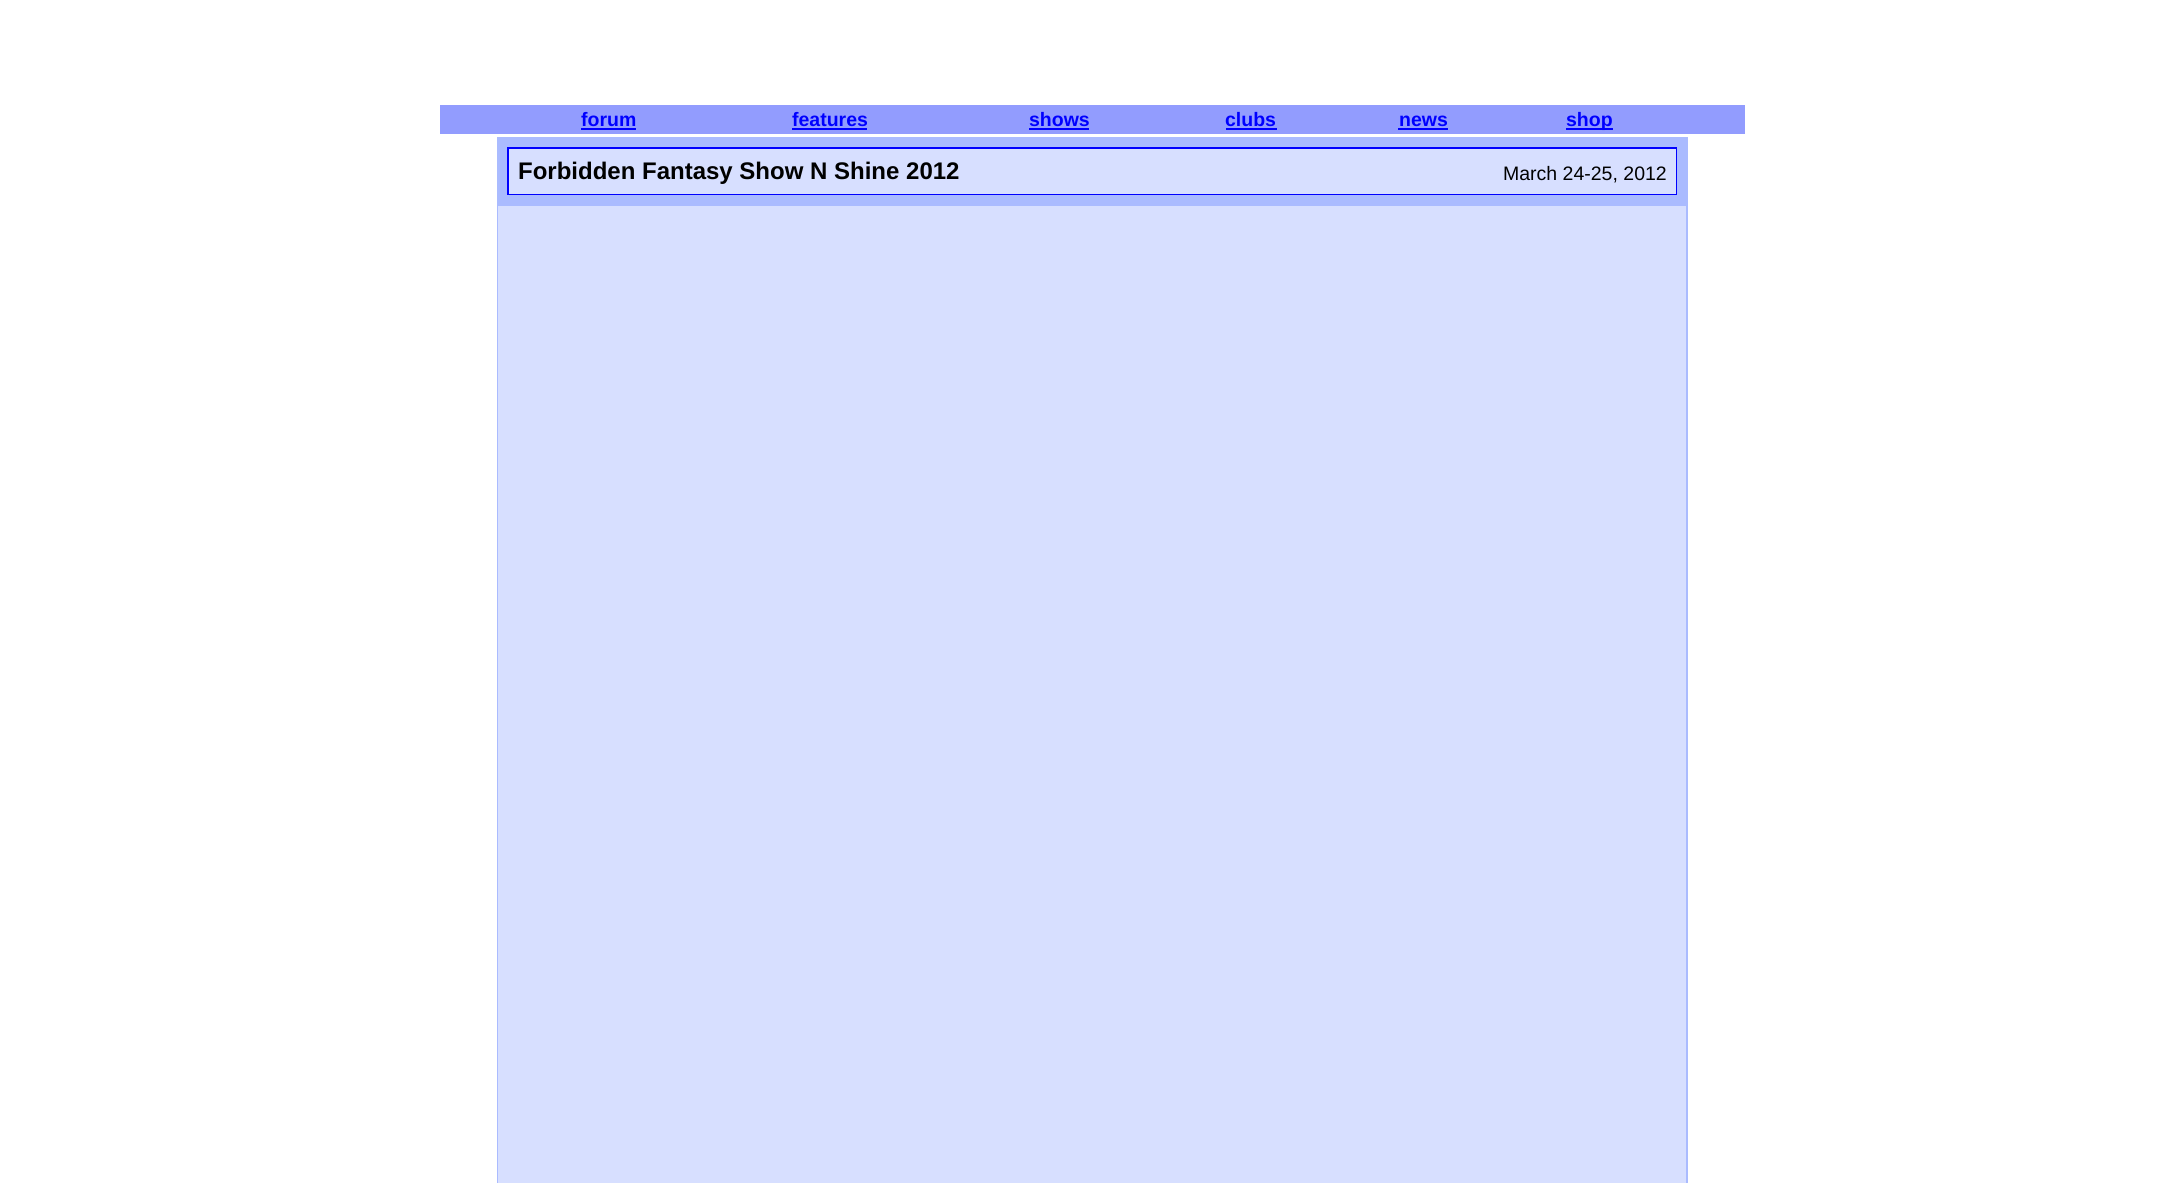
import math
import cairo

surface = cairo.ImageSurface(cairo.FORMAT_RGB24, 2184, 1183)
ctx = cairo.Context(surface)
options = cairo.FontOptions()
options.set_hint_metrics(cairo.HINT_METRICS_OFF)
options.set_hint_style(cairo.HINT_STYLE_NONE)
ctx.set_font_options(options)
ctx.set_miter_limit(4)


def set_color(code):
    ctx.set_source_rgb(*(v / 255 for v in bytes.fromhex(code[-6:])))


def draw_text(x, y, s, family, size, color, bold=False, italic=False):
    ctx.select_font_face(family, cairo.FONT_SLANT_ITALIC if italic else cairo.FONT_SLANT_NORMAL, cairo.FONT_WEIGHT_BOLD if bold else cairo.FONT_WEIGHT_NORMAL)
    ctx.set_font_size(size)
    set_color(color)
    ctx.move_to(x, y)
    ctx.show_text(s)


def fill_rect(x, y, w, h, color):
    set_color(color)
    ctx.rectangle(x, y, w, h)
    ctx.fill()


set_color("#ffffff")
ctx.paint()
fill_rect(440, 105, 1305, 29, "#929cfe")
draw_text(581, 126, "forum", "Liberation Sans", 19.5, "#0000ff", bold=True)
fill_rect(581, 128, 55, 2, "#0000ff")
draw_text(792, 126, "features", "Liberation Sans", 19.5, "#0000ff", bold=True)
fill_rect(792, 128, 75, 2, "#0000ff")
draw_text(1029, 126, "shows", "Liberation Sans", 19.5, "#0000ff", bold=True)
fill_rect(1029, 128, 60, 2, "#0000ff")
draw_text(1225, 126, "clubs", "Liberation Sans", 19.5, "#0000ff", bold=True)
fill_rect(1226, 128, 51, 2, "#0000ff")
draw_text(1399, 126, "news", "Liberation Sans", 19.5, "#0000ff", bold=True)
fill_rect(1398, 128, 50, 2, "#0000ff")
fill_rect(1566, 128, 47, 2, "#0000ff")
draw_text(1566, 126, "shop", "Liberation Sans", 19.5, "#0000ff", bold=True)
fill_rect(497, 137, 1191, 1046, "#aabbff")
fill_rect(507, 147, 1170, 48, "#0000ff")
fill_rect(509, 149, 1167, 45, "#d7dfff")
draw_text(518, 179, "Forbidden Fantasy Show N Shine 2012", "Liberation Sans", 24, "#000000", bold=True)
draw_text(1503, 180, "March 24-25, 2012", "Liberation Sans", 19.5, "#000000")
fill_rect(498, 206, 1188, 977, "#d7dfff")
surface.write_to_png("output.png")
